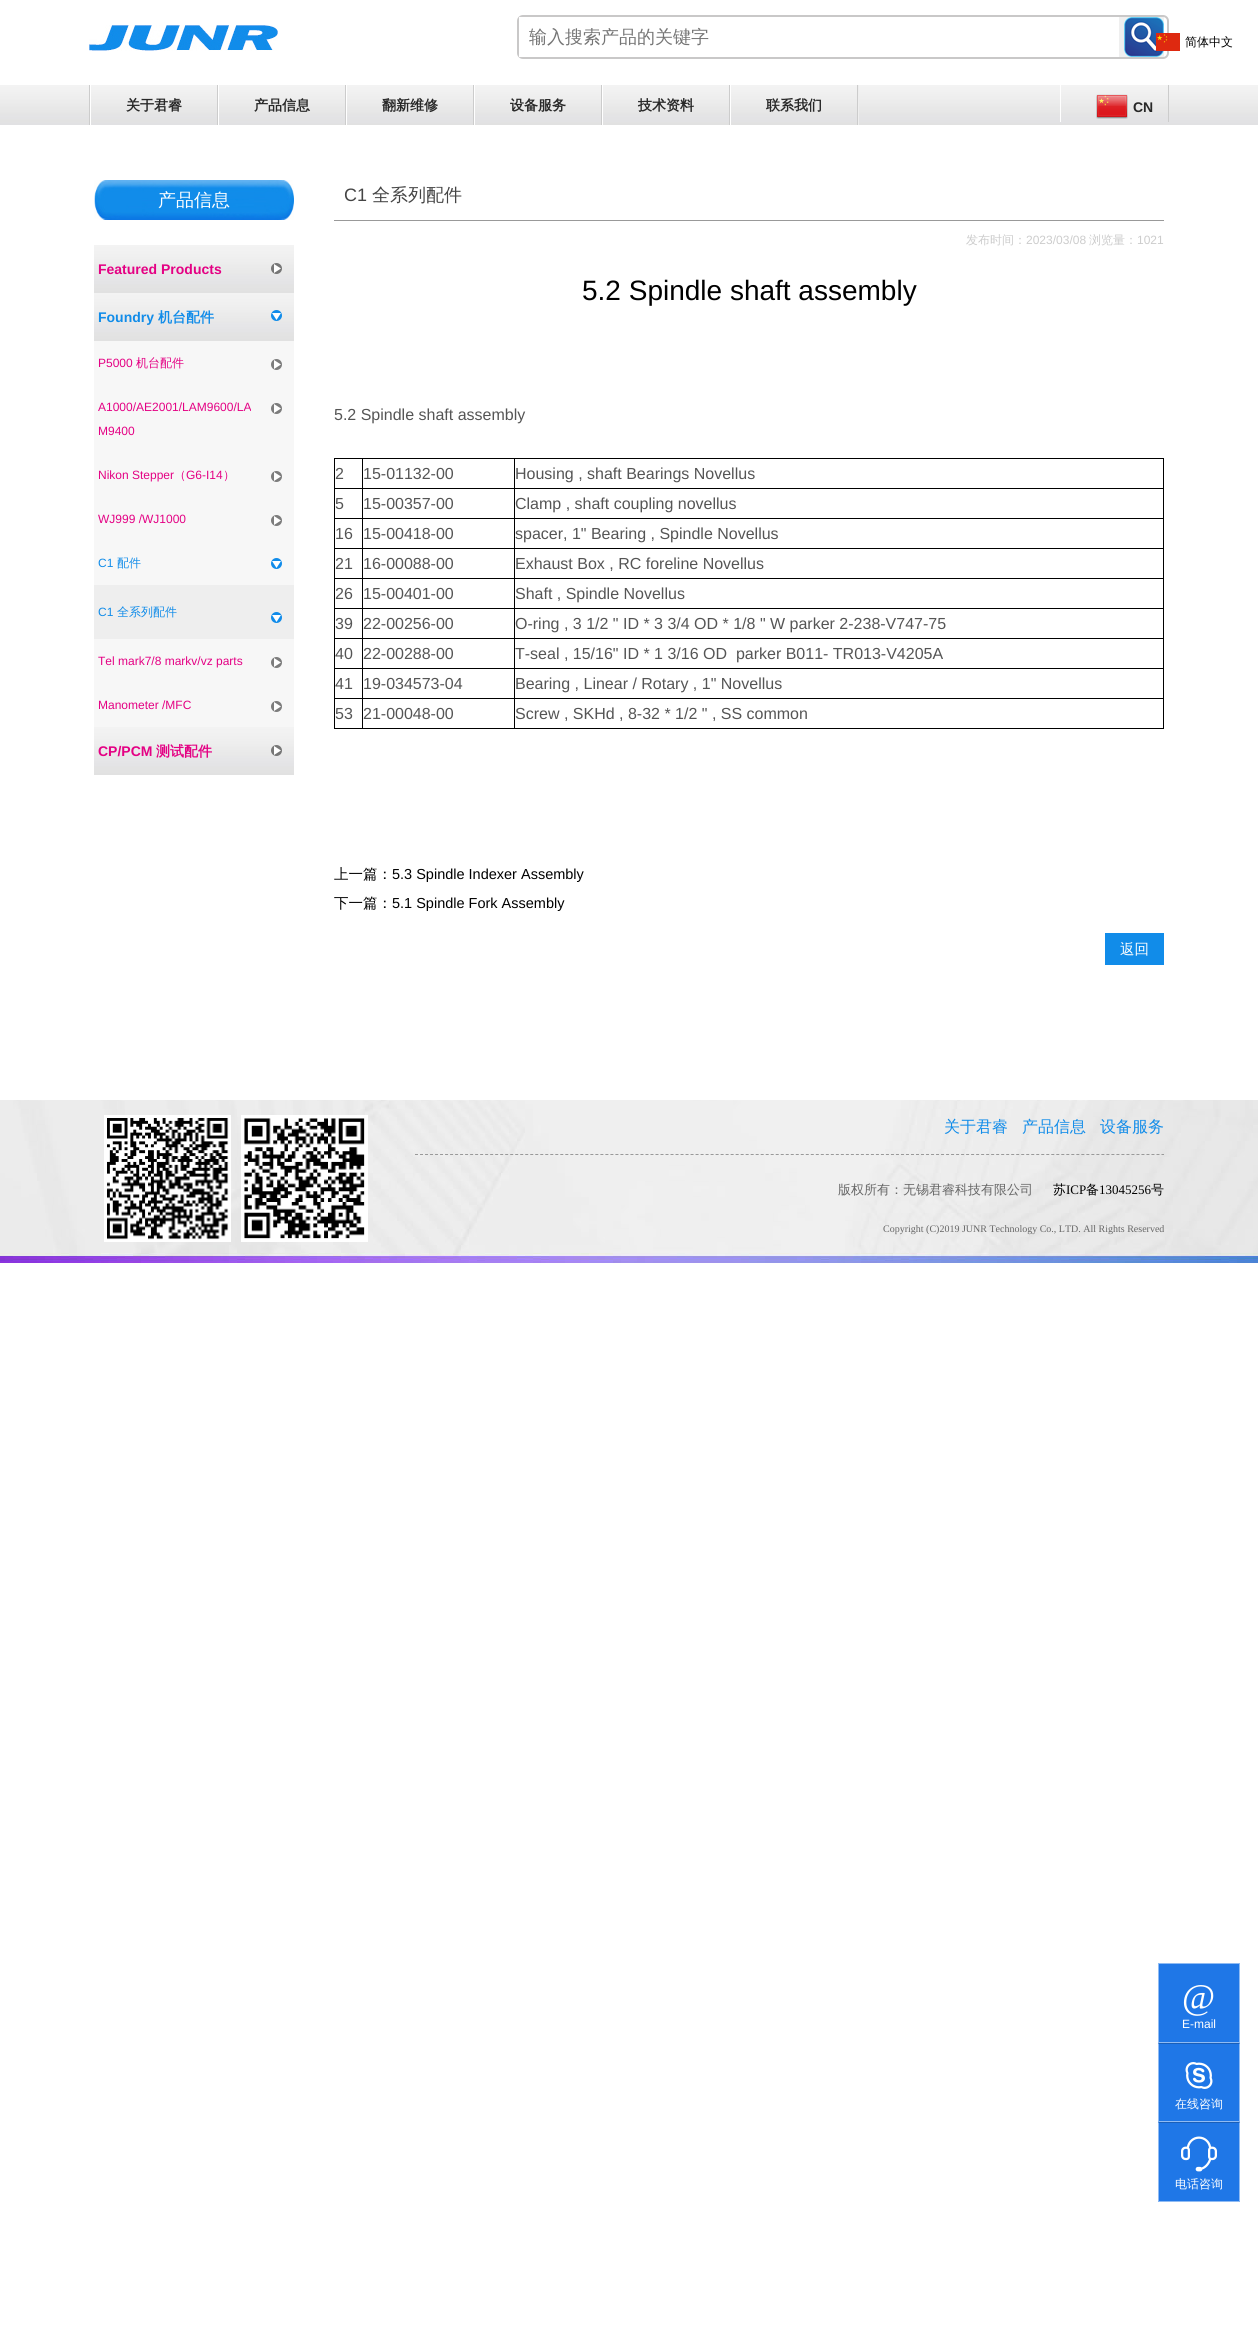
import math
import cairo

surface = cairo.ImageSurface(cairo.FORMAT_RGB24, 1258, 2352)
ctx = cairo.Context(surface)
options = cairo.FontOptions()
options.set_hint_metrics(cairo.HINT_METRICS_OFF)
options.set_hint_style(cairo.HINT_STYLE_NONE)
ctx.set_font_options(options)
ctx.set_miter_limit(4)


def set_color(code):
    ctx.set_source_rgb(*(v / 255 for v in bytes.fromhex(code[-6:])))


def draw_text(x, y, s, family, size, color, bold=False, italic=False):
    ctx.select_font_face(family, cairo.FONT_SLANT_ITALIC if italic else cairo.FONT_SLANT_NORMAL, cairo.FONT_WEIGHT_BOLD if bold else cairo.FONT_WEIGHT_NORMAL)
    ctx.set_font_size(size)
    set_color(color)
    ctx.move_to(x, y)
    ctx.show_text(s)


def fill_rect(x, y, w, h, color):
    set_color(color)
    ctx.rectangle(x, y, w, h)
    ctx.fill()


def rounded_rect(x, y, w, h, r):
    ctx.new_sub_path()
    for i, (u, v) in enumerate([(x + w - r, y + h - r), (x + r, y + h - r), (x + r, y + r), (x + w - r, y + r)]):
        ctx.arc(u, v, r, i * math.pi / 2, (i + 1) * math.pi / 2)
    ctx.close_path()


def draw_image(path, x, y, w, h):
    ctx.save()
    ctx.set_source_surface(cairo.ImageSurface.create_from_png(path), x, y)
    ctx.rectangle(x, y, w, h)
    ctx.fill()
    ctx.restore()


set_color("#ffffff")
ctx.paint()
draw_image("assets/img1.png", 89, 25, 189, 26)
rounded_rect(518, 16, 650, 42, 5)
set_color("#c9c8c8")
ctx.stroke()
fill_rect(519, 17, 4, 40, "#ffffff")
draw_text(529, 43, "输入搜索产品的关键字", "WenQuanYi Zen Hei Medium", 18, "#757575")
fill_rect(1119, 17, 45, 40, "#efefef")
draw_image("assets/img2.png", 1124, 17, 40, 40)
draw_image("assets/img3.png", 0, 85, 1258, 40)
fill_rect(858, 85, 1, 40, "#eeeeee")
fill_rect(89, 85, 1, 40, "#cccccc")
fill_rect(217, 85, 1, 40, "#cccccc")
fill_rect(90, 85, 1, 40, "#ffffff")
draw_text(126, 110, "关于君睿", "WenQuanYi Zen Hei", 14, "#282828", bold=True)
fill_rect(345, 85, 1, 40, "#cccccc")
fill_rect(218, 85, 1, 40, "#ffffff")
draw_text(254, 110, "产品信息", "WenQuanYi Zen Hei", 14, "#282828", bold=True)
fill_rect(473, 85, 1, 40, "#cccccc")
fill_rect(346, 85, 1, 40, "#ffffff")
draw_text(382, 110, "翻新维修", "WenQuanYi Zen Hei", 14, "#282828", bold=True)
fill_rect(601, 85, 1, 40, "#cccccc")
fill_rect(474, 85, 1, 40, "#ffffff")
draw_text(510, 110, "设备服务", "WenQuanYi Zen Hei", 14, "#282828", bold=True)
fill_rect(729, 85, 1, 40, "#cccccc")
fill_rect(602, 85, 1, 40, "#ffffff")
draw_text(638, 110, "技术资料", "WenQuanYi Zen Hei", 14, "#282828", bold=True)
fill_rect(857, 85, 1, 40, "#cccccc")
fill_rect(730, 85, 1, 40, "#ffffff")
draw_text(766, 110, "联系我们", "WenQuanYi Zen Hei", 14, "#282828", bold=True)
fill_rect(1168, 85, 1, 37, "#cccccc")
fill_rect(1060, 85, 1, 37, "#ffffff")
draw_image("assets/img4.png", 1096, 94, 32, 25)
draw_text(1133, 112, "CN", "Liberation Sans", 14, "#282828", bold=True)
draw_image("assets/img5.png", 94, 180, 200, 40)
draw_text(158, 206, "产品信息", "WenQuanYi Zen Hei Medium", 18, "#ffffff")
draw_image("assets/img6.png", 94, 245, 200, 48)
draw_text(98, 274, "Featured Products", "Liberation Sans", 14, "#e40184", bold=True)
draw_image("assets/img7.png", 271, 263, 11, 11)
draw_image("assets/img6.png", 94, 293, 200, 48)
draw_text(98, 322, "Foundry", "Liberation Sans", 14, "#118ce9", bold=True)
draw_text(158, 322, "机台配件", "WenQuanYi Zen Hei", 14, "#118ce9", bold=True)
draw_image("assets/img8.png", 271, 310, 11, 11)
fill_rect(94, 341, 200, 244, "#f7f7f7")
draw_text(98, 367, "P5000", "Liberation Sans", 12, "#e40184")
draw_text(136, 367, "机台配件", "WenQuanYi Zen Hei Medium", 12, "#e40184")
draw_image("assets/img9.png", 271, 359, 11, 11)
draw_text(98, 411, "A1000/AE2001/LAM9600/LA", "Liberation Sans", 12, "#e40184")
draw_image("assets/img9.png", 271, 403, 11, 11)
draw_text(98, 435, "M9400", "Liberation Sans", 12, "#e40184")
draw_text(98, 479, "Nikon Stepper", "Liberation Sans", 12, "#e40184")
draw_text(174, 479, "（", "WenQuanYi Zen Hei Medium", 12, "#e40184")
draw_text(186, 479, "G6-I14", "Liberation Sans", 12, "#e40184")
draw_text(223, 479, "）", "WenQuanYi Zen Hei Medium", 12, "#e40184")
draw_image("assets/img9.png", 271, 471, 11, 11)
draw_text(98, 523, "WJ999 /WJ1000", "Liberation Sans", 12, "#e40184")
draw_image("assets/img9.png", 271, 515, 11, 11)
draw_text(98, 567, "C1", "Liberation Sans", 12, "#118ce9")
draw_text(117, 567, "配件", "WenQuanYi Zen Hei Medium", 12, "#118ce9")
draw_image("assets/img10.png", 271, 558, 11, 11)
fill_rect(94, 585, 200, 54, "#eeeeee")
draw_text(98, 616, "C1", "Liberation Sans", 12, "#118ce9")
draw_text(117, 616, "全系列配件", "WenQuanYi Zen Hei Medium", 12, "#118ce9")
draw_image("assets/img11.png", 271, 612, 11, 11)
fill_rect(94, 639, 200, 88, "#f7f7f7")
draw_text(98, 665, "Tel mark7/8 markv/vz parts", "Liberation Sans", 12, "#e40184")
draw_image("assets/img9.png", 271, 657, 11, 11)
draw_text(98, 709, "Manometer /MFC", "Liberation Sans", 12, "#e40184")
draw_image("assets/img9.png", 271, 701, 11, 11)
draw_image("assets/img6.png", 94, 727, 200, 48)
draw_text(98, 756, "CP/PCM", "Liberation Sans", 14, "#e40184", bold=True)
draw_text(156, 756, "测试配件", "WenQuanYi Zen Hei", 14, "#e40184", bold=True)
draw_image("assets/img7.png", 271, 745, 11, 11)
fill_rect(334, 220, 830, 1, "#999999")
draw_text(344, 201, "C1", "Liberation Sans", 18, "#444444")
draw_text(372, 201, "全系列配件", "WenQuanYi Zen Hei Medium", 18, "#444444")
draw_text(966, 244, "发布时间：", "WenQuanYi Zen Hei Medium", 12, "#cccccc")
draw_text(1026, 244, "2023/03/08", "Liberation Sans", 12, "#cccccc")
draw_text(1089, 244, "浏览量：", "WenQuanYi Zen Hei Medium", 12, "#cccccc")
draw_text(1137, 244, "1021", "Liberation Sans", 12, "#cccccc")
draw_text(582, 300, "5.2 Spindle shaft assembly", "Liberation Sans", 28, "#000000")
draw_text(334, 420, "5.2 Spindle shaft assembly", "Liberation Sans", 16, "#555555")
fill_rect(334, 458, 830, 1, "#000000")
fill_rect(1163, 458, 1, 271, "#000000")
fill_rect(334, 728, 830, 1, "#000000")
fill_rect(334, 458, 1, 271, "#000000")
draw_text(335, 479, "2", "Liberation Sans", 16, "#555555")
fill_rect(514, 488, 650, 1, "#000000")
fill_rect(514, 518, 650, 1, "#000000")
fill_rect(514, 548, 650, 1, "#000000")
fill_rect(514, 578, 650, 1, "#000000")
fill_rect(514, 608, 650, 1, "#000000")
fill_rect(514, 638, 650, 1, "#000000")
fill_rect(514, 668, 650, 1, "#000000")
fill_rect(514, 698, 650, 1, "#000000")
fill_rect(514, 698, 1, 31, "#000000")
fill_rect(362, 698, 153, 1, "#000000")
fill_rect(514, 668, 1, 31, "#000000")
fill_rect(362, 668, 153, 1, "#000000")
fill_rect(514, 638, 1, 31, "#000000")
fill_rect(362, 638, 153, 1, "#000000")
fill_rect(514, 608, 1, 31, "#000000")
fill_rect(362, 608, 153, 1, "#000000")
fill_rect(514, 578, 1, 31, "#000000")
fill_rect(362, 578, 153, 1, "#000000")
fill_rect(514, 548, 1, 31, "#000000")
fill_rect(362, 548, 153, 1, "#000000")
fill_rect(514, 518, 1, 31, "#000000")
fill_rect(362, 518, 153, 1, "#000000")
fill_rect(514, 488, 1, 31, "#000000")
fill_rect(362, 488, 153, 1, "#000000")
fill_rect(362, 698, 1, 31, "#000000")
fill_rect(334, 698, 29, 1, "#000000")
fill_rect(362, 668, 1, 31, "#000000")
fill_rect(334, 668, 29, 1, "#000000")
fill_rect(362, 638, 1, 31, "#000000")
fill_rect(334, 638, 29, 1, "#000000")
fill_rect(362, 608, 1, 31, "#000000")
fill_rect(334, 608, 29, 1, "#000000")
fill_rect(362, 578, 1, 31, "#000000")
fill_rect(334, 578, 29, 1, "#000000")
fill_rect(362, 548, 1, 31, "#000000")
fill_rect(334, 548, 29, 1, "#000000")
fill_rect(362, 518, 1, 31, "#000000")
fill_rect(334, 518, 29, 1, "#000000")
fill_rect(362, 488, 1, 31, "#000000")
fill_rect(334, 488, 29, 1, "#000000")
fill_rect(362, 458, 1, 31, "#000000")
draw_text(363, 479, "15-01132-00", "Liberation Sans", 16, "#555555")
fill_rect(514, 458, 1, 31, "#000000")
draw_text(515, 479, "Housing , shaft Bearings Novellus", "Liberation Sans", 16, "#555555")
draw_text(335, 509, "5", "Liberation Sans", 16, "#555555")
draw_text(363, 509, "15-00357-00", "Liberation Sans", 16, "#555555")
draw_text(515, 509, "Clamp , shaft coupling novellus", "Liberation Sans", 16, "#555555")
draw_text(335, 539, "16", "Liberation Sans", 16, "#555555")
draw_text(363, 539, "15-00418-00", "Liberation Sans", 16, "#555555")
draw_text(515, 539, "spacer, 1\" Bearing , Spindle Novellus", "Liberation Sans", 16, "#555555")
draw_text(335, 569, "21", "Liberation Sans", 16, "#555555")
draw_text(363, 569, "16-00088-00", "Liberation Sans", 16, "#555555")
draw_text(515, 569, "Exhaust Box , RC foreline Novellus", "Liberation Sans", 16, "#555555")
draw_text(335, 599, "26", "Liberation Sans", 16, "#555555")
draw_text(363, 599, "15-00401-00", "Liberation Sans", 16, "#555555")
draw_text(515, 599, "Shaft , Spindle Novellus", "Liberation Sans", 16, "#555555")
draw_text(335, 629, "39", "Liberation Sans", 16, "#555555")
draw_text(363, 629, "22-00256-00", "Liberation Sans", 16, "#555555")
draw_text(515, 629, "O-ring , 3 1/2 \" ID * 3 3/4 OD * 1/8 \" W parker 2-238-V747-75", "Liberation Sans", 16, "#555555")
draw_text(335, 659, "40", "Liberation Sans", 16, "#555555")
draw_text(363, 659, "22-00288-00", "Liberation Sans", 16, "#555555")
draw_text(515, 659, "T-seal , 15/16\" ID * 1 3/16 OD  parker B011- TR013-V4205A", "Liberation Sans", 16, "#555555")
draw_text(335, 689, "41", "Liberation Sans", 16, "#555555")
draw_text(363, 689, "19-034573-04", "Liberation Sans", 16, "#555555")
draw_text(515, 689, "Bearing , Linear / Rotary , 1\" Novellus", "Liberation Sans", 16, "#555555")
draw_text(335, 719, "53", "Liberation Sans", 16, "#555555")
draw_text(363, 719, "21-00048-00", "Liberation Sans", 16, "#555555")
draw_text(515, 719, "Screw , SKHd , 8-32 * 1/2 \" , SS common", "Liberation Sans", 16, "#555555")
draw_text(334, 879, "上一篇：", "WenQuanYi Zen Hei Medium", 14.5, "#000000")
draw_text(392, 879, "5.3 Spindle Indexer Assembly", "Liberation Sans", 14.5, "#000000")
draw_text(334, 908, "下一篇：", "WenQuanYi Zen Hei Medium", 14.5, "#000000")
draw_text(392, 908, "5.1 Spindle Fork Assembly", "Liberation Sans", 14.5, "#000000")
fill_rect(1105, 933, 59, 32, "#118ce9")
draw_text(1120, 954, "返回", "WenQuanYi Zen Hei Medium", 14.5, "#ffffff")
draw_image("assets/img12.png", 0, 1100, 1258, 163)
draw_image("assets/img13.png", 104, 1115, 127, 127)
draw_image("assets/img14.png", 241, 1115, 127, 127)
draw_text(944, 1132, "关于君睿", "WenQuanYi Zen Hei Medium", 16, "#118ce9")
draw_text(1022, 1132, "产品信息", "WenQuanYi Zen Hei Medium", 16, "#118ce9")
draw_text(1100, 1132, "设备服务", "WenQuanYi Zen Hei Medium", 16, "#118ce9")
ctx.new_path()
ctx.move_to(415, 1154.5)
ctx.line_to(1164, 1154.5)
set_color("#999999")
ctx.set_line_width(1)
ctx.set_dash([3, 2.01])
ctx.stroke()
draw_text(838, 1194, "版权所有：无锡君睿科技有限公司", "WenQuanYi Zen Hei Medium", 13, "#666666")
draw_text(1053, 1194, "苏", "WenQuanYi Zen Hei Medium", 13, "#000000")
draw_text(1066, 1194, "ICP", "Liberation Serif", 13, "#000000")
draw_text(1086, 1194, "备", "WenQuanYi Zen Hei Medium", 13, "#000000")
draw_text(1099, 1194, "13045256", "Liberation Serif", 13, "#000000")
draw_text(1151, 1194, "号", "WenQuanYi Zen Hei Medium", 13, "#000000")
draw_text(883, 1232, "Copyright (C)2019 JUNR Technology Co., LTD. All Rights Reserved", "Liberation Serif", 10, "#666666")
draw_image("assets/img15.png", 1156, 33, 24, 18)
draw_text(1185, 46, "简体中文", "WenQuanYi Zen Hei Medium", 12, "#000000")
set_color("#1f77e7")
ctx.rectangle(1158.5, 1963.5, 81, 79)
ctx.fill_preserve()
set_color("#8fbbf3")
ctx.set_dash([])
ctx.stroke()
draw_text(1182, 2009, "@", "Liberation Serif", 36, "#ffffff")
draw_text(1182, 2028, "E-mail", "Liberation Sans", 12, "#ffffff")
fill_rect(1158, 2043, 82, 159, "#1f77e7")
set_color("#195fb9")
ctx.new_path()
ctx.move_to(1158, 2043)
ctx.line_to(1240, 2043)
ctx.line_to(1239, 2044)
ctx.line_to(1159, 2044)
ctx.close_path()
ctx.fill()
ctx.set_source_rgba(1, 1, 1, 0.5)
ctx.new_path()
ctx.move_to(1240, 2043)
ctx.line_to(1240, 2122)
ctx.line_to(1239, 2121)
ctx.line_to(1239, 2044)
ctx.close_path()
ctx.fill()
ctx.new_path()
ctx.move_to(1240, 2122)
ctx.line_to(1158, 2122)
ctx.line_to(1159, 2121)
ctx.line_to(1239, 2121)
ctx.close_path()
ctx.fill()
ctx.new_path()
ctx.move_to(1158, 2122)
ctx.line_to(1158, 2043)
ctx.line_to(1159, 2044)
ctx.line_to(1159, 2121)
ctx.close_path()
ctx.fill()
draw_image("assets/img16.png", 1185, 2062, 28, 27)
draw_text(1175, 2108, "在线咨询", "WenQuanYi Zen Hei Medium", 12, "#ffffff")
set_color("#195fb9")
ctx.new_path()
ctx.move_to(1158, 2122)
ctx.line_to(1240, 2122)
ctx.line_to(1239, 2123)
ctx.line_to(1159, 2123)
ctx.close_path()
ctx.fill()
ctx.set_source_rgba(1, 1, 1, 0.5)
ctx.new_path()
ctx.move_to(1240, 2122)
ctx.line_to(1240, 2202)
ctx.line_to(1239, 2201)
ctx.line_to(1239, 2123)
ctx.close_path()
ctx.fill()
ctx.new_path()
ctx.move_to(1240, 2202)
ctx.line_to(1158, 2202)
ctx.line_to(1159, 2201)
ctx.line_to(1239, 2201)
ctx.close_path()
ctx.fill()
ctx.new_path()
ctx.move_to(1158, 2202)
ctx.line_to(1158, 2122)
ctx.line_to(1159, 2123)
ctx.line_to(1159, 2201)
ctx.close_path()
ctx.fill()
draw_image("assets/img17.png", 1181, 2136, 36, 36)
draw_text(1175, 2188, "电话咨询", "WenQuanYi Zen Hei Medium", 12, "#ffffff")
surface.write_to_png("output.png")
